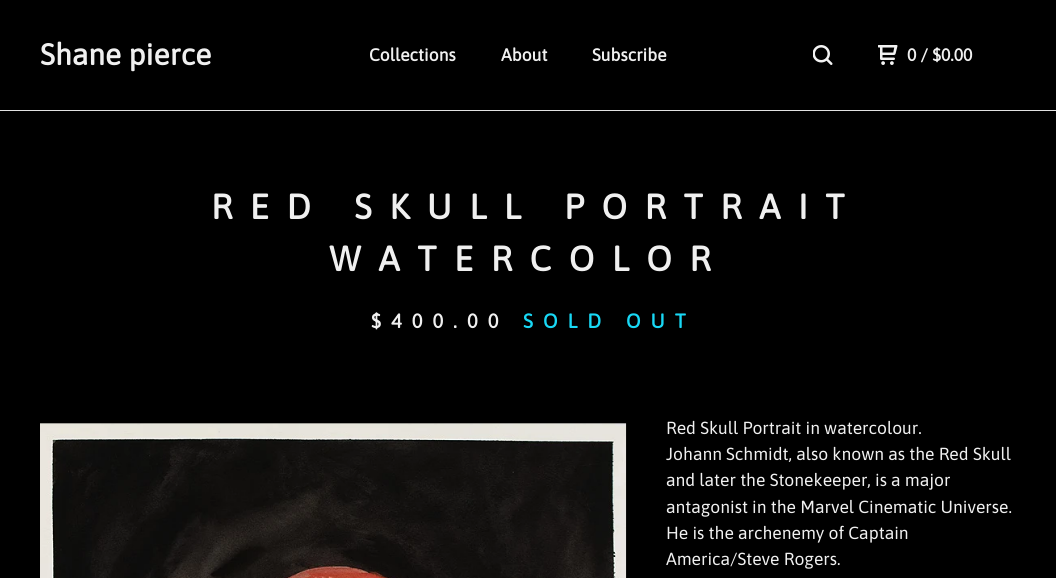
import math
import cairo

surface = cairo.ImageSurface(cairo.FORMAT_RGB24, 1056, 578)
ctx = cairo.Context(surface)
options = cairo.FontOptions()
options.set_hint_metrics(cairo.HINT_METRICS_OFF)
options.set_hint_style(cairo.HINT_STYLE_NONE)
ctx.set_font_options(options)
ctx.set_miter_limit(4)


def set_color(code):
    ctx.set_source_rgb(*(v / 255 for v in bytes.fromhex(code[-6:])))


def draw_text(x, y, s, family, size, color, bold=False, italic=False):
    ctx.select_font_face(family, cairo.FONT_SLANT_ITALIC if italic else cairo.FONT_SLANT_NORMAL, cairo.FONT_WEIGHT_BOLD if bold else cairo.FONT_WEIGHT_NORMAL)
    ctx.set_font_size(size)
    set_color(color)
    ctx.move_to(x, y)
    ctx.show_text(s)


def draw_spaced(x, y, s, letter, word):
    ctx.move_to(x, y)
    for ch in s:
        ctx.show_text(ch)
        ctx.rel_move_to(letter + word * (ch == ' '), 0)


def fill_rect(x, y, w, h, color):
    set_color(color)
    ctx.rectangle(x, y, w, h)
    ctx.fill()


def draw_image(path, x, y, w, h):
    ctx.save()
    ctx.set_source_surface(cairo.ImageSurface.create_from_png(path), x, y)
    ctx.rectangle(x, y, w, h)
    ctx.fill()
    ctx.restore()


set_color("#000000")
ctx.paint()
draw_text(40, 65, "Shane pierce", "Asap", 30, "#f0f0f0", bold=True)
draw_text(369, 61, "Collections", "Asap", 17.5, "#f0f0f0", bold=True)
draw_text(501, 61, "About", "Asap", 17.5, "#f0f0f0", bold=True)
draw_text(592, 61, "Subscribe", "Asap", 17.5, "#f0f0f0", bold=True)
draw_image("assets/img1.png", 813, 45, 20, 20)
draw_image("assets/img2.png", 878, 45, 20, 20)
draw_text(907, 61, "0 / $0.00", "Asap", 17.5, "#f0f0f0", bold=True)
fill_rect(0, 110, 1056, 1, "#e2e2e2")
ctx.set_font_size(35)
set_color("#f0f0f0")
draw_spaced(211, 219, "RED SKULL PORTRAIT", 17.5, 0)
draw_spaced(329, 271, "WATERCOLOR", 17.5, 0)
ctx.set_font_size(20)
draw_spaced(371, 328, "$400.00", 10, 0)
set_color("#18d8f5")
draw_spaced(523, 328, "SOLD OUT", 10, 0)
draw_image("assets/img3.png", 40, 423, 587, 155)
draw_text(666, 434, "Red Skull Portrait in watercolour.", "Asap", 17.5, "#f0f0f0")
draw_text(666, 460, "Johann Schmidt, also known as the Red Skull", "Asap", 17.5, "#f0f0f0")
draw_text(666, 486, "and later the Stonekeeper, is a major", "Asap", 17.5, "#f0f0f0")
draw_text(666, 513, "antagonist in the Marvel Cinematic Universe.", "Asap", 17.5, "#f0f0f0")
draw_text(666, 539, "He is the archenemy of Captain", "Asap", 17.5, "#f0f0f0")
draw_text(666, 565, "America/Steve Rogers.", "Asap", 17.5, "#f0f0f0")
surface.write_to_png("output.png")
